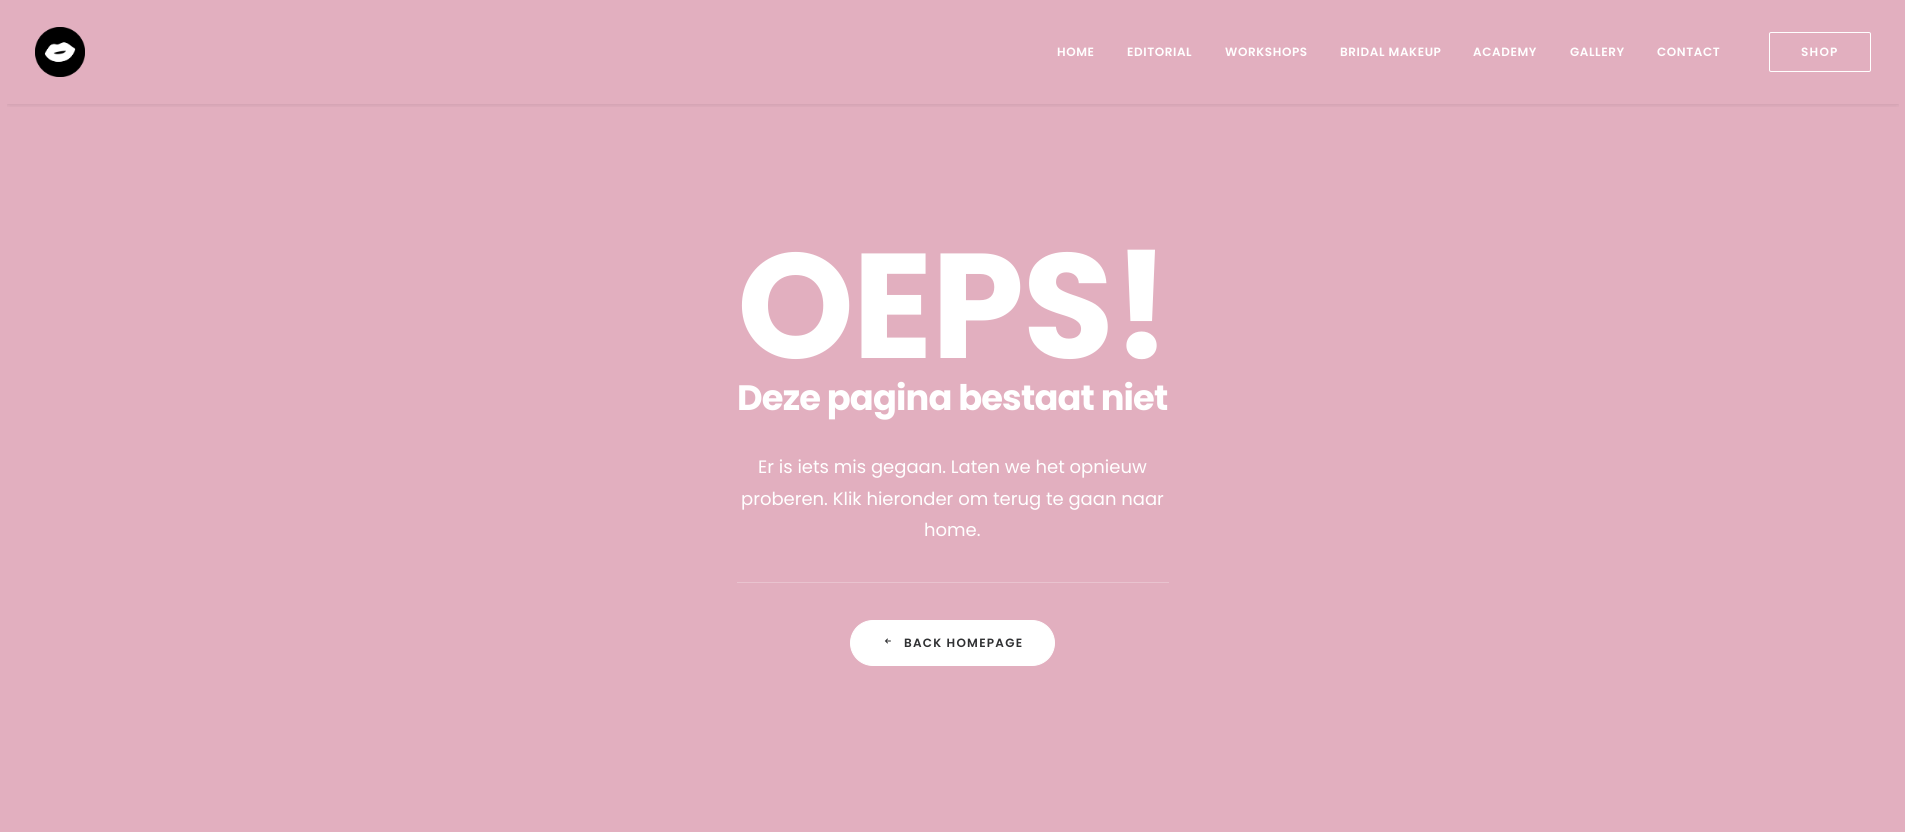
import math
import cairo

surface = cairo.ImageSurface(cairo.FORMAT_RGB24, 1905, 832)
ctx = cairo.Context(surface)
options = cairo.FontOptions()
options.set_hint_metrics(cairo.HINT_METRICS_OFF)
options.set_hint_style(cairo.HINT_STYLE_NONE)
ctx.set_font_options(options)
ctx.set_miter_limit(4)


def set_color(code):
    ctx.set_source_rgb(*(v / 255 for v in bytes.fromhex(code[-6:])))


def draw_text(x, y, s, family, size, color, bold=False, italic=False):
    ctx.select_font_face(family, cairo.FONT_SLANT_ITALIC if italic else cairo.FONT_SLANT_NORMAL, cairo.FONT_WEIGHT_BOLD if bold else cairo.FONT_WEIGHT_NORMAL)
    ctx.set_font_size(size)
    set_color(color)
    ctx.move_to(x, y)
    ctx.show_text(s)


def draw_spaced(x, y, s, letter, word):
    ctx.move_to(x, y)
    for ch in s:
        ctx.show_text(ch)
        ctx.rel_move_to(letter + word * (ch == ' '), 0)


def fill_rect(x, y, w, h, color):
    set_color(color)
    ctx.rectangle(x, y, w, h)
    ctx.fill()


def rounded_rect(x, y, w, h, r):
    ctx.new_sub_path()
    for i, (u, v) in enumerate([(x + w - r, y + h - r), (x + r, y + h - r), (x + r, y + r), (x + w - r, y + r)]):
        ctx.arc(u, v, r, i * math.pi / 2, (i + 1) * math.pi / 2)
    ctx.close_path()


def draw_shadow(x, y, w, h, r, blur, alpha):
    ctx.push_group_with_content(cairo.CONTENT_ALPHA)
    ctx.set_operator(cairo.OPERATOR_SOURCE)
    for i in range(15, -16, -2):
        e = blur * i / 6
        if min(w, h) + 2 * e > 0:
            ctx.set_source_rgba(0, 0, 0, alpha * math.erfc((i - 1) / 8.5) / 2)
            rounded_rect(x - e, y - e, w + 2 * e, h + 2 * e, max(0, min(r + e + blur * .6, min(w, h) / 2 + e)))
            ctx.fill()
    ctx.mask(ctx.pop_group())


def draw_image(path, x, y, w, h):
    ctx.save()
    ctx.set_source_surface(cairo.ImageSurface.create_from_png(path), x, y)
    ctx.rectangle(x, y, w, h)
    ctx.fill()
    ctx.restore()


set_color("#e2afbf")
ctx.paint()
ctx.save()
ctx.rectangle(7, 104, 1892, 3)
ctx.clip()
set_color("#000000")
draw_shadow(9, 14, 1888, 84, 0, 5, 0.6)
ctx.restore()
draw_image("assets/img1.png", 35, 27, 50, 50)
ctx.select_font_face("Poppins SemiBold")
ctx.set_font_size(12)
set_color("#ffffff")
draw_spaced(1057, 56, "HOME", 0.6, 0)
draw_spaced(1127, 56, "EDITORIAL", 0.6, 0)
draw_spaced(1225, 56, "WORKSHOPS", 0.6, 0)
draw_spaced(1340, 56, "BRIDAL MAKEUP", 0.6, 0)
draw_spaced(1473, 56, "ACADEMY", 0.6, 0)
draw_spaced(1570, 56, "GALLERY", 0.6, 0)
draw_spaced(1657, 56, "CONTACT", 0.6, 0)
rounded_rect(1769.5, 32.5, 101, 39, 1.5)
ctx.set_line_width(1)
ctx.stroke()
draw_spaced(1801, 56, "SHOP", 1.25, 0)
ctx.select_font_face("Poppins", cairo.FONT_SLANT_NORMAL, cairo.FONT_WEIGHT_BOLD)
ctx.set_font_size(149)
draw_spaced(737, 358, "OEPS!", -1.75, 0)
ctx.set_font_size(35.25)
draw_spaced(737, 410, "Deze pagina bestaat niet", -0.85, 0)
draw_text(758, 473, "Er is iets mis gegaan. Laten we het opnieuw", "Poppins", 18, "#ffffff")
draw_text(741, 505, "proberen. Klik hieronder om terug te gaan naar", "Poppins", 18, "#ffffff")
draw_text(924, 536, "home.", "Poppins", 18, "#ffffff")
fill_rect(737, 582, 432, 1, "#e9c3cf")
set_color("#ffffff")
rounded_rect(850.5, 620.5, 204, 45, 22.5)
ctx.fill_preserve()
ctx.stroke()
draw_image("assets/img2.png", 884, 638, 7, 6)
ctx.select_font_face("Poppins SemiBold")
ctx.set_font_size(12)
set_color("#303133")
draw_spaced(904, 647, "BACK HOMEPAGE", 1.25, 0)
surface.write_to_png("output.png")
